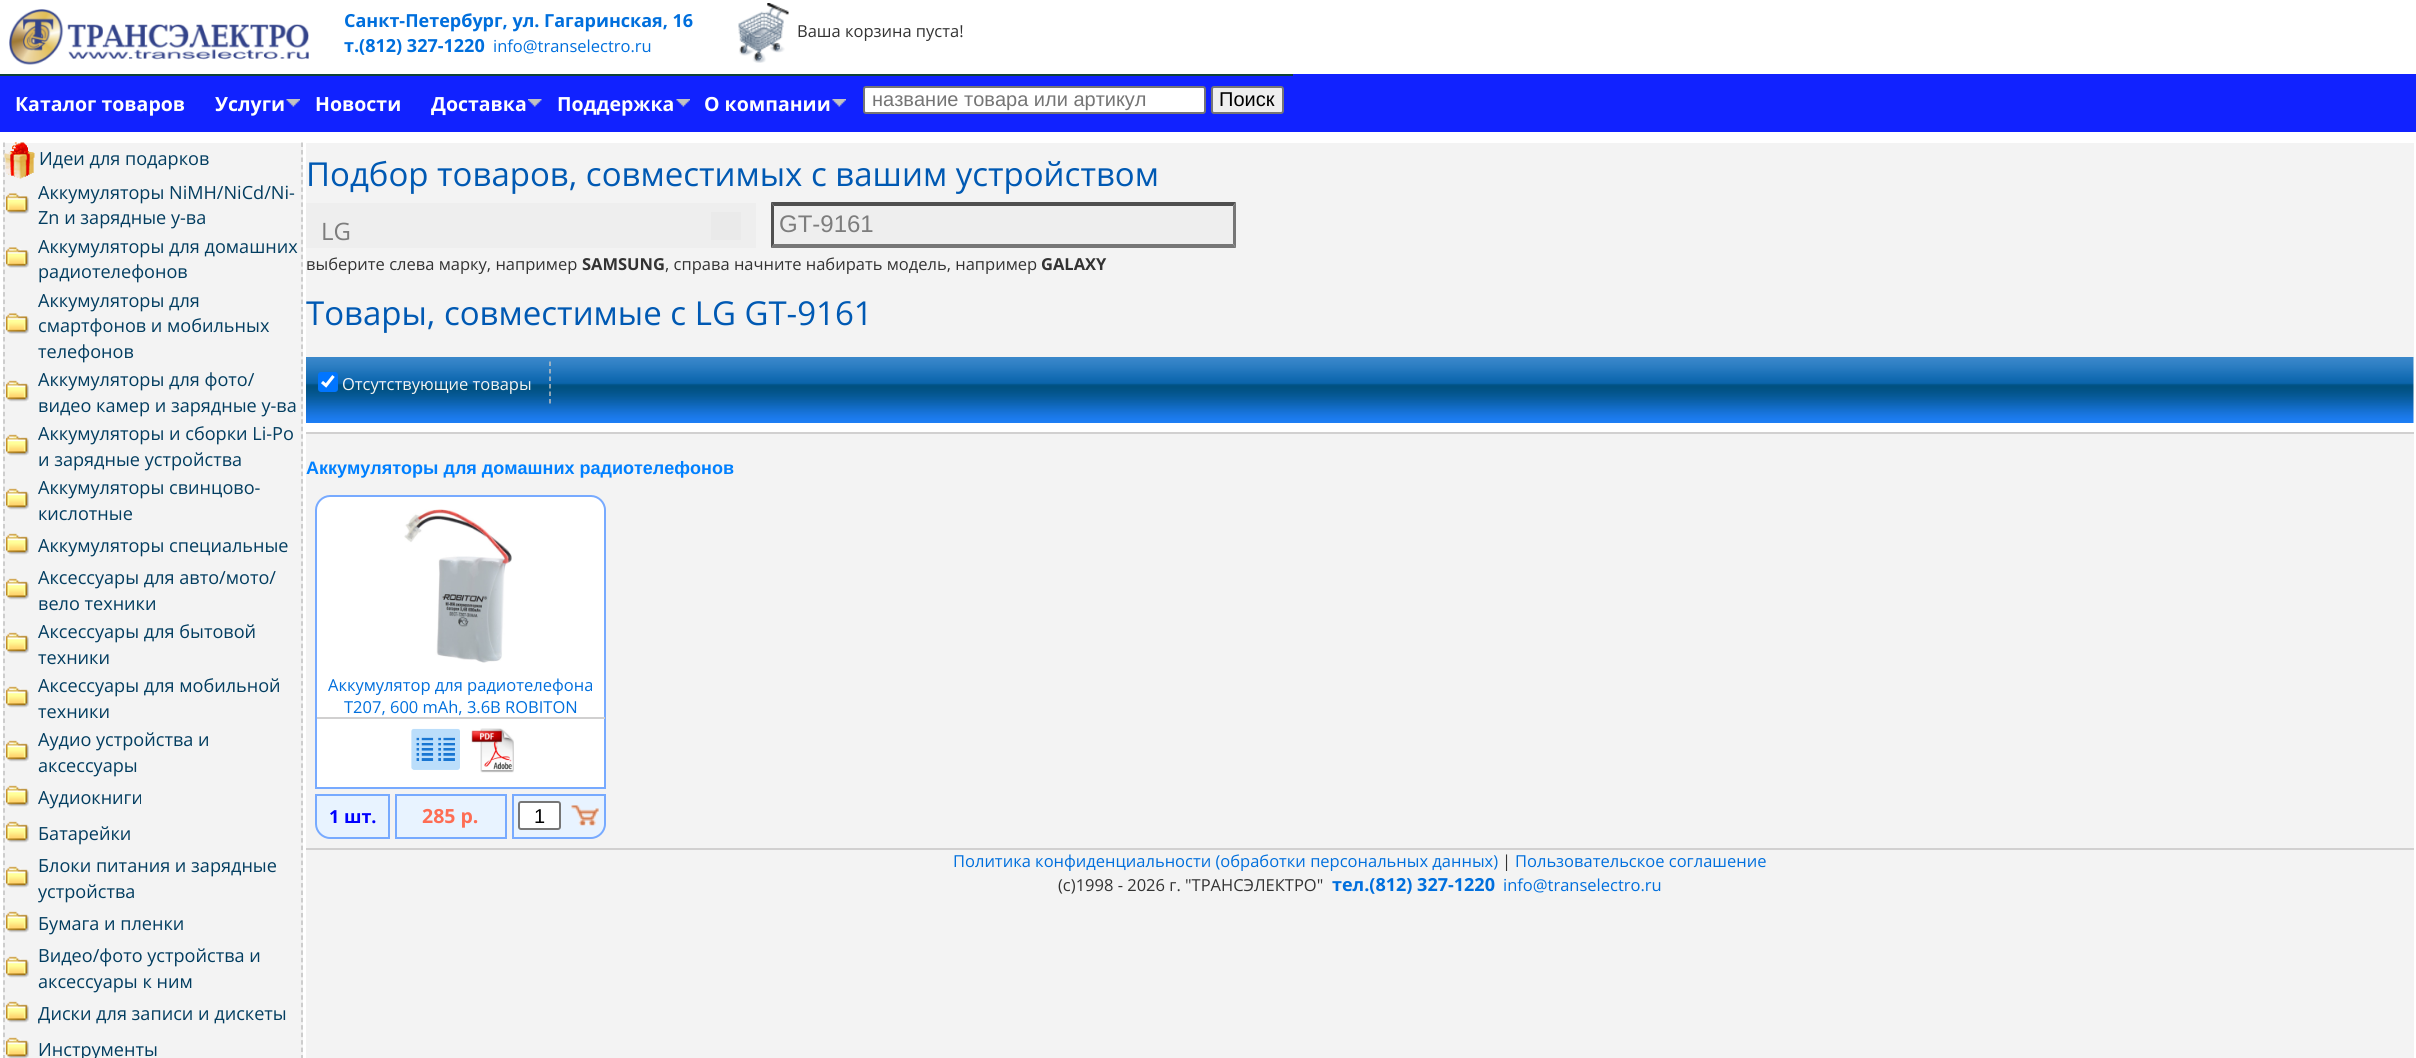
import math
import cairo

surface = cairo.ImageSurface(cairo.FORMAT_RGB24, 2416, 1058)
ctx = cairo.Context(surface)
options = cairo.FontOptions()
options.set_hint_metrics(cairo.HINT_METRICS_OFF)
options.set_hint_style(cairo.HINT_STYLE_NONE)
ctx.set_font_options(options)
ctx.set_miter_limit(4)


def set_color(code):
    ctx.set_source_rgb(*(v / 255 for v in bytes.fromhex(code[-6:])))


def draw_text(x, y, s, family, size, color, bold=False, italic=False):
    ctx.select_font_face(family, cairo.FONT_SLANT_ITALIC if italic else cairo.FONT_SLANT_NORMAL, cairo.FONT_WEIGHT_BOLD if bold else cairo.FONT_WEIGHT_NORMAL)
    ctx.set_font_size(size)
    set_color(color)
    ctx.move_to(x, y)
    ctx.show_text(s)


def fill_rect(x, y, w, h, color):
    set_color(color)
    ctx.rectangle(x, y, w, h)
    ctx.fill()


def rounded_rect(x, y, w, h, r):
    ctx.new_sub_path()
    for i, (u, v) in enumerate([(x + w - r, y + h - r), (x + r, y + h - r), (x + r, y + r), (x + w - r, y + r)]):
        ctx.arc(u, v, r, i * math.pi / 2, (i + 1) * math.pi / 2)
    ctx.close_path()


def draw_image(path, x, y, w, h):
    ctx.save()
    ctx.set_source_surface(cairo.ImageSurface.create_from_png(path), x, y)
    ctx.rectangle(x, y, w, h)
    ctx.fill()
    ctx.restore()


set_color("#ffffff")
ctx.paint()
draw_image("assets/img1.png", 9, 9, 300, 56)
draw_text(344, 27, "Санкт-Петербург, ул. Гагаринская, 16", "Open Sans", 18, "#006fdd", bold=True)
draw_text(344, 52, "т.(812) 327-1220", "Open Sans", 18, "#006fdd", bold=True)
draw_text(493, 52, "info@transelectro.ru", "Open Sans", 16.5, "#006fdd")
draw_image("assets/img2.png", 738, 3, 51, 60)
draw_text(797, 37, "Ваша корзина пуста!", "Open Sans", 16.5, "#333333")
fill_rect(0, 74, 2416, 58, "#1122ff")
fill_rect(0, 74, 1293, 2, "#104336")
draw_text(15, 111, "Каталог товаров", "Open Sans", 19.5, "#ffffff", bold=True)
draw_image("assets/img3.png", 286, 99, 14, 8)
draw_text(215, 111, "Услуги", "Open Sans", 19.5, "#ffffff", bold=True)
draw_text(315, 111, "Новости", "Open Sans", 19.5, "#ffffff", bold=True)
draw_image("assets/img4.png", 528, 99, 14, 8)
draw_text(431, 111, "Доставка", "Open Sans", 19.5, "#ffffff", bold=True)
draw_image("assets/img3.png", 676, 99, 14, 8)
draw_text(557, 111, "Поддержка", "Open Sans", 19.5, "#ffffff", bold=True)
draw_image("assets/img5.png", 832, 99, 14, 8)
draw_text(704, 111, "О компании", "Open Sans", 19.5, "#ffffff", bold=True)
rounded_rect(864, 87, 341, 26, 2)
ctx.fill_preserve()
set_color("#767676")
ctx.stroke()
draw_text(872, 106, "название товара или артикул", "Liberation Sans", 20, "#757575")
set_color("#efefef")
rounded_rect(1212, 87, 71, 26, 2)
ctx.fill_preserve()
set_color("#767676")
ctx.stroke()
draw_text(1219, 106, "Поиск", "Liberation Sans", 20, "#000000")
fill_rect(3, 143, 300, 915, "#f3f3f3")
ctx.new_path()
ctx.move_to(302, 142.5)
ctx.line_to(302, 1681.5)
set_color("#c0c0c0")
ctx.set_line_width(1.5)
ctx.set_dash([4.5, 2.98])
ctx.stroke()
ctx.new_path()
ctx.move_to(4, 142.5)
ctx.line_to(4, 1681.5)
ctx.stroke()
draw_image("assets/img6.png", 4, 142, 31, 37)
draw_text(39, 165, "Идеи для подарков", "Open Sans", 18.1, "#023d60")
draw_image("assets/img7.png", 6, 193, 23, 21)
draw_text(38, 199, "Аккумуляторы NiMH/NiCd/Ni-", "Open Sans", 18.1, "#023d60")
draw_text(38, 224, "Zn и зарядные у-ва", "Open Sans", 18.1, "#023d60")
draw_image("assets/img7.png", 6, 247, 23, 21)
draw_text(38, 253, "Аккумуляторы для домашних", "Open Sans", 18.1, "#023d60")
draw_text(38, 278, "радиотелефонов", "Open Sans", 18.1, "#023d60")
draw_image("assets/img7.png", 6, 313, 23, 21)
draw_text(38, 307, "Аккумуляторы для", "Open Sans", 18.1, "#023d60")
draw_text(38, 332, "смартфонов и мобильных", "Open Sans", 18.1, "#023d60")
draw_text(38, 358, "телефонов", "Open Sans", 18.1, "#023d60")
draw_image("assets/img8.png", 6, 380, 23, 22)
draw_text(38, 386, "Аккумуляторы для фото/", "Open Sans", 18.1, "#023d60")
draw_text(38, 412, "видео камер и зарядные у-ва", "Open Sans", 18.1, "#023d60")
draw_image("assets/img8.png", 6, 434, 23, 22)
draw_text(38, 440, "Аккумуляторы и сборки Li-Po", "Open Sans", 18.1, "#023d60")
draw_text(38, 466, "и зарядные устройства", "Open Sans", 18.1, "#023d60")
draw_image("assets/img8.png", 6, 488, 23, 22)
draw_text(38, 494, "Аккумуляторы свинцово-", "Open Sans", 18.1, "#023d60")
draw_text(38, 520, "кислотные", "Open Sans", 18.1, "#023d60")
draw_image("assets/img8.png", 6, 533, 23, 22)
draw_text(38, 552, "Аккумуляторы специальные", "Open Sans", 18.1, "#023d60")
draw_image("assets/img8.png", 6, 578, 23, 22)
draw_text(38, 584, "Аксессуары для авто/мото/", "Open Sans", 18.1, "#023d60")
draw_text(38, 610, "вело техники", "Open Sans", 18.1, "#023d60")
draw_image("assets/img8.png", 6, 632, 23, 22)
draw_text(38, 638, "Аксессуары для бытовой", "Open Sans", 18.1, "#023d60")
draw_text(38, 664, "техники", "Open Sans", 18.1, "#023d60")
draw_image("assets/img8.png", 6, 686, 23, 22)
draw_text(38, 692, "Аксессуары для мобильной", "Open Sans", 18.1, "#023d60")
draw_text(38, 718, "техники", "Open Sans", 18.1, "#023d60")
draw_image("assets/img8.png", 6, 740, 23, 22)
draw_text(38, 746, "Аудио устройства и", "Open Sans", 18.1, "#023d60")
draw_text(38, 772, "аксессуары", "Open Sans", 18.1, "#023d60")
draw_image("assets/img8.png", 6, 785, 23, 22)
draw_text(38, 804, "Аудиокниги", "Open Sans", 18.1, "#023d60")
draw_image("assets/img8.png", 6, 821, 23, 22)
draw_text(38, 840, "Батарейки", "Open Sans", 18.1, "#023d60")
draw_image("assets/img8.png", 6, 866, 23, 22)
draw_text(38, 872, "Блоки питания и зарядные", "Open Sans", 18.1, "#023d60")
draw_text(38, 898, "устройства", "Open Sans", 18.1, "#023d60")
draw_image("assets/img8.png", 6, 911, 23, 22)
draw_text(38, 930, "Бумага и пленки", "Open Sans", 18.1, "#023d60")
draw_image("assets/img8.png", 6, 956, 23, 22)
draw_text(38, 962, "Видео/фото устройства и", "Open Sans", 18.1, "#023d60")
draw_text(38, 988, "аксессуары к ним", "Open Sans", 18.1, "#023d60")
draw_image("assets/img8.png", 6, 1001, 23, 22)
draw_text(38, 1020, "Диски для записи и дискеты", "Open Sans", 18.1, "#023d60")
draw_image("assets/img9.png", 6, 1037, 23, 21)
draw_text(38, 1056, "Инструменты", "Open Sans", 18.1, "#023d60")
fill_rect(306, 143, 2108, 915, "#f3f3f3")
draw_text(306, 186, "Подбор товаров, совместимых с вашим устройством", "Open Sans", 33, "#0059b3")
fill_rect(306, 203, 450, 45, "#eeeeee")
draw_text(321, 240, "LG", "Open Sans", 24, "#7d7d7d")
fill_rect(711, 212, 30, 28, "#eaeaea")
fill_rect(771, 203, 465, 45, "#eeeeee")
set_color("#4f4f4f")
ctx.new_path()
ctx.move_to(771, 202)
ctx.line_to(1236, 202)
ctx.line_to(1233, 206)
ctx.line_to(774, 206)
ctx.close_path()
ctx.fill()
set_color("#767676")
ctx.new_path()
ctx.move_to(1236, 202)
ctx.line_to(1236, 248)
ctx.line_to(1233, 244)
ctx.line_to(1233, 206)
ctx.close_path()
ctx.fill()
ctx.new_path()
ctx.move_to(1236, 248)
ctx.line_to(771, 248)
ctx.line_to(774, 244)
ctx.line_to(1233, 244)
ctx.close_path()
ctx.fill()
set_color("#4f4f4f")
ctx.new_path()
ctx.move_to(771, 248)
ctx.line_to(771, 202)
ctx.line_to(774, 206)
ctx.line_to(774, 244)
ctx.close_path()
ctx.fill()
draw_text(779, 232, "GT-9161", "Liberation Sans", 24, "#7d7d7d")
draw_text(306, 270, "выберите слева марку, например", "Open Sans", 16.5, "#333333")
draw_text(582, 270, "SAMSUNG", "Open Sans", 16.5, "#333333", bold=True)
draw_text(665, 270, ", справа начните набирать модель, например", "Open Sans", 16.5, "#333333")
draw_text(1041, 270, "GALAXY", "Open Sans", 16.5, "#333333", bold=True)
draw_text(306, 325, "Товары, совместимые с LG GT-9161", "Open Sans", 33, "#0059b3")
fill_rect(306, 357, 2108, 75, "#ffffff")
draw_image("assets/img10.png", 306, 357, 2108, 66)
set_color("#0075ff")
rounded_rect(318, 372, 20, 20, 3)
ctx.fill()
ctx.new_path()
ctx.move_to(322, 382)
ctx.line_to(326, 385.5)
ctx.line_to(333.5, 376)
set_color("#ffffff")
ctx.set_line_width(3.1)
ctx.set_dash([])
ctx.stroke()
draw_text(342, 390, "Отсутствующие товары", "Open Sans", 16.5, "#f4f4f4")
ctx.new_path()
ctx.move_to(550, 361.5)
ctx.line_to(550, 403.5)
set_color("#c0c0c0")
ctx.set_line_width(1.5)
ctx.set_dash([4.5, 3])
ctx.stroke()
fill_rect(306, 432, 2108, 2, "#d1d0d0")
draw_text(306, 474, "Аккумуляторы для домашних радиотелефонов", "Liberation Sans", 18, "#0080ff", bold=True)
set_color("#ffffff")
ctx.new_path()
ctx.move_to(330, 496)
ctx.line_to(591, 496)
ctx.curve_to(598.5, 496, 605, 502.5, 605, 510)
ctx.line_to(605, 788)
ctx.line_to(316, 788)
ctx.line_to(316, 510)
ctx.curve_to(316, 502.5, 322.5, 496, 330, 496)
ctx.close_path()
ctx.fill_preserve()
set_color("#77aaff")
ctx.set_line_width(2)
ctx.set_dash([])
ctx.stroke()
draw_image("assets/img11.png", 404, 509, 108, 154)
draw_text(328, 691, "Аккумулятор для радиотелефона", "Open Sans", 16.5, "#006fdd")
draw_text(344, 713, "T207, 600 mAh, 3.6В ROBITON", "Open Sans", 16.5, "#006fdd")
fill_rect(317, 717, 288, 2, "#d1d0d0")
draw_image("assets/img12.png", 411, 728, 49, 42)
draw_image("assets/img13.png", 471, 728, 43, 45)
set_color("#e8f3ff")
ctx.new_path()
ctx.move_to(316, 795)
ctx.line_to(389, 795)
ctx.line_to(389, 838)
ctx.line_to(330, 838)
ctx.curve_to(322.5, 838, 316, 831.5, 316, 824)
ctx.close_path()
ctx.fill_preserve()
set_color("#77aaff")
ctx.stroke()
draw_text(329, 823, "1 шт.", "Open Sans", 18, "#0000ff", bold=True)
set_color("#e8f3ff")
ctx.rectangle(396, 795, 110, 43)
ctx.fill_preserve()
set_color("#77aaff")
ctx.stroke()
draw_text(422, 823, "285 р.", "Open Sans", 19.5, "#fe6d54", bold=True)
set_color("#e8f3ff")
ctx.new_path()
ctx.move_to(513, 795)
ctx.line_to(605, 795)
ctx.line_to(605, 824)
ctx.curve_to(605, 831.5, 598.5, 838, 591, 838)
ctx.line_to(513, 838)
ctx.close_path()
ctx.fill_preserve()
set_color("#77aaff")
ctx.stroke()
set_color("#ffffff")
rounded_rect(519, 802, 41, 27, 2)
ctx.fill_preserve()
set_color("#767676")
ctx.stroke()
draw_text(534, 823, "1", "Liberation Sans", 20, "#000000")
draw_image("assets/img14.png", 571, 805, 28, 21)
fill_rect(306, 848, 2108, 2, "#d1d0d0")
draw_text(953, 867, "Политика конфиденциальности (обработки персональных данных)", "Open Sans", 16.5, "#006fdd")
draw_text(1502, 867, "|", "Open Sans", 16.5, "#333333")
draw_text(1515, 867, "Пользовательское соглашение", "Open Sans", 16.5, "#006fdd")
draw_text(1058, 891, "(c)1998 - 2026 г. \"ТРАНСЭЛЕКТРО\"", "Open Sans", 16.5, "#333333")
draw_text(1332, 891, "тел.(812) 327-1220", "Open Sans", 18, "#006fdd", bold=True)
draw_text(1503, 891, "info@transelectro.ru", "Open Sans", 16.5, "#006fdd")
surface.write_to_png("output.png")
